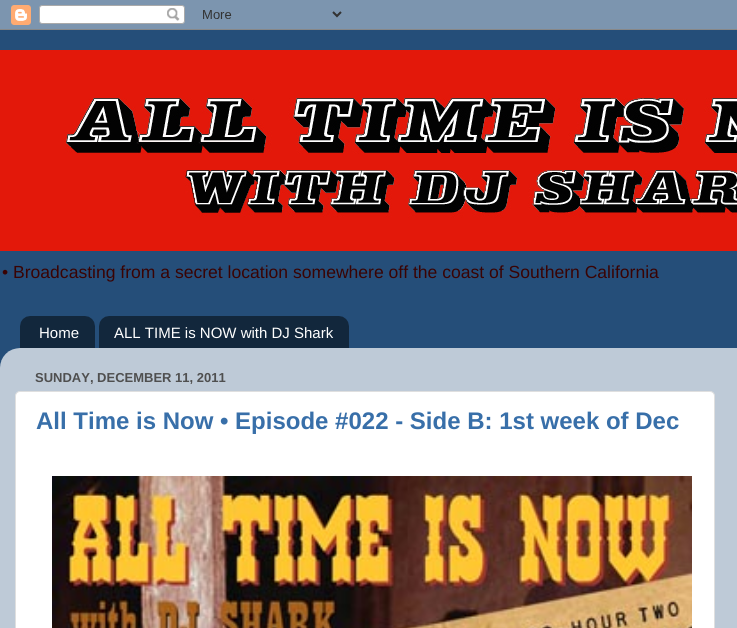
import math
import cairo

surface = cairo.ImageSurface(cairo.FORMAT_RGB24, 737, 628)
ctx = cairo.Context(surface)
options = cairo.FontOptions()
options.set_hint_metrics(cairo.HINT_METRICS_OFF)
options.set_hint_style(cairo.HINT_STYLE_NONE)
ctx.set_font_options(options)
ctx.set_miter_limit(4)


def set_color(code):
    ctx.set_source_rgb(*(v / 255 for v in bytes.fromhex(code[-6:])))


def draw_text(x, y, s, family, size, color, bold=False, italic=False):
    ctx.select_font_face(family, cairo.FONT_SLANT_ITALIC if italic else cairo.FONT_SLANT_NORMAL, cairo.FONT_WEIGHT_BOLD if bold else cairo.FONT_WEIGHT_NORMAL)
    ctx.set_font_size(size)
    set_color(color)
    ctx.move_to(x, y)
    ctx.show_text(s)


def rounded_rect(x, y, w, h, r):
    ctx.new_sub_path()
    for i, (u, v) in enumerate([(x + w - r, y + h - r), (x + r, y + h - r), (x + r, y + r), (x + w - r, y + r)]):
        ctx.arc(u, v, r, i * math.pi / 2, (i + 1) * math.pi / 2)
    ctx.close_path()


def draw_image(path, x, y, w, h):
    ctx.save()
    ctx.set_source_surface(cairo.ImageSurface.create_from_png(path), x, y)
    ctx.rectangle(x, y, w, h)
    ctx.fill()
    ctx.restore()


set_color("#254e79")
ctx.paint()
draw_image("assets/img1.png", 0, 0, 737, 30)
draw_image("assets/img2.png", 0, 50, 737, 201)
draw_text(2, 278, "• Broadcasting from a secret location somewhere off the coast of Southern California", "Liberation Sans", 17.55, "#390303")
draw_image("assets/img3.png", 20, 316, 75, 32)
draw_text(39, 338, "Home", "Liberation Sans", 15, "#ffffff")
draw_image("assets/img4.png", 99, 316, 250, 32)
draw_text(114, 338, "ALL TIME is NOW with DJ Shark", "Liberation Sans", 15, "#ffffff")
draw_image("assets/img5.png", 0, 348, 737, 280)
draw_text(35, 382, "SUNDAY, DECEMBER 11, 2011", "Liberation Sans", 13, "#4f4f4f", bold=True)
set_color("#ffffff")
rounded_rect(15.5, 391.5, 699, 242, 4.5)
ctx.fill_preserve()
set_color("#dfdfdf")
ctx.set_line_width(1)
ctx.stroke()
draw_text(36, 429, "All Time is Now • Episode #022 - Side B: 1st week of Dec", "Liberation Sans", 24, "#386fa9", bold=True)
draw_image("assets/img6.png", 52, 476, 640, 152)
surface.write_to_png("output.png")
